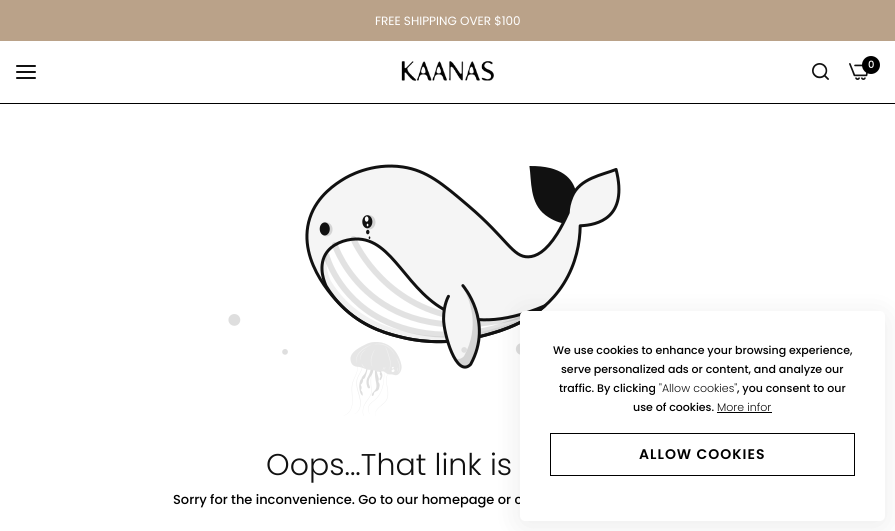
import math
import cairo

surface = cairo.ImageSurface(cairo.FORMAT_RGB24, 895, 531)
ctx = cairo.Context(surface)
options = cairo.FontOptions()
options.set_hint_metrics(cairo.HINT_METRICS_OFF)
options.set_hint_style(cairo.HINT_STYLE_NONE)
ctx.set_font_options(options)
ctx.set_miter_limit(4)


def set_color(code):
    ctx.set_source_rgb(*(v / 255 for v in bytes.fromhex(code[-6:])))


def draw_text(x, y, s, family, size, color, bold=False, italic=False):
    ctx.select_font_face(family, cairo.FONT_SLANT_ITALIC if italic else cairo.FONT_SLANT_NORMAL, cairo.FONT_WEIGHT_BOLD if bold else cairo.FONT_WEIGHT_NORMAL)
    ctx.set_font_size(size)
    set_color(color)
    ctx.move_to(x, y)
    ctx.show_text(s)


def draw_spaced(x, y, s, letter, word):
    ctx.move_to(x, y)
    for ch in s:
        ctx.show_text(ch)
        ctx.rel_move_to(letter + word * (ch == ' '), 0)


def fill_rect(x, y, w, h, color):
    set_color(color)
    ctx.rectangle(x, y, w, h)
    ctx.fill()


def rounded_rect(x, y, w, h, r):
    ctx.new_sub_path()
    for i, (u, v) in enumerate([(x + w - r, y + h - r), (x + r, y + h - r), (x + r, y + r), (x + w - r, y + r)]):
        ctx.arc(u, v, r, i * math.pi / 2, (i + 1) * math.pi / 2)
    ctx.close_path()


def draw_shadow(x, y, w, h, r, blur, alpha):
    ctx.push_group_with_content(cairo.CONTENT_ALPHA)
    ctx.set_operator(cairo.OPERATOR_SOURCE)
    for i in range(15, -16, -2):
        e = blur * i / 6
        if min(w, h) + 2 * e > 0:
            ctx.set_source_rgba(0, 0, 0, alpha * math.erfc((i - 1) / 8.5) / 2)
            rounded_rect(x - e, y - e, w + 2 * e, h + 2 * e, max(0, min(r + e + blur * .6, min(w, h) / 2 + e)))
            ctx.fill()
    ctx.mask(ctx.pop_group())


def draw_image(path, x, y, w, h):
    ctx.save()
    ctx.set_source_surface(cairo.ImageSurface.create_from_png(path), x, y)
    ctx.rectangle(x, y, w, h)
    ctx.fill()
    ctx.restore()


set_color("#ffffff")
ctx.paint()
fill_rect(0, 0, 895, 41, "#baa289")
draw_text(375, 25, "FREE SHIPPING OVER $100", "Poppins", 12, "#ffffff")
fill_rect(0, 103, 895, 1, "#000000")
draw_image("assets/img1.png", 16, 65, 20, 14)
draw_image("assets/img2.png", 401, 61, 93, 20)
draw_image("assets/img3.png", 812, 63, 17, 17)
draw_image("assets/img4.png", 849, 63, 19, 17)
ctx.arc(871, 65, 9, 0, 2 * math.pi)
ctx.fill()
draw_text(868, 68, "0", "Poppins Medium", 10, "#ffffff")
draw_image("assets/img5.png", 228, 164, 393, 252)
draw_text(266, 475, "Oops...That link is", "Poppins Light", 30, "#111111")
draw_text(173, 504, "Sorry for the inconvenience. Go to our homepage or c", "Poppins Medium", 13, "#000000")
set_color("#000000")
draw_shadow(520, 316, 365, 210, 5, 15, 0.08)
set_color("#ffffff")
rounded_rect(520, 311, 365, 210, 5)
ctx.fill()
draw_text(553, 354, "We use cookies to enhance your browsing experience,", "Poppins Medium", 11, "#000000")
draw_text(561, 373, "serve personalized ads or content, and analyze our", "Poppins Medium", 11, "#000000")
draw_text(559, 392, "traffic. By clicking", "Poppins Medium", 11, "#000000")
draw_text(659, 392, "\"Allow cookies\"", "Poppins Light", 11, "#111111")
draw_text(737, 392, ", you consent to our", "Poppins Medium", 11, "#000000")
draw_text(633, 411, "use of cookies.", "Poppins Medium", 11, "#000000")
draw_text(717, 411, "More infor", "Poppins Light", 11, "#111111")
fill_rect(717, 412, 55, 1, "#000000")
ctx.rectangle(550.5, 433.5, 304, 42)
ctx.set_line_width(1)
ctx.stroke()
ctx.select_font_face("Poppins SemiBold")
ctx.set_font_size(14)
draw_spaced(639, 459, "ALLOW COOKIES", 1, 0)
surface.write_to_png("output.png")
